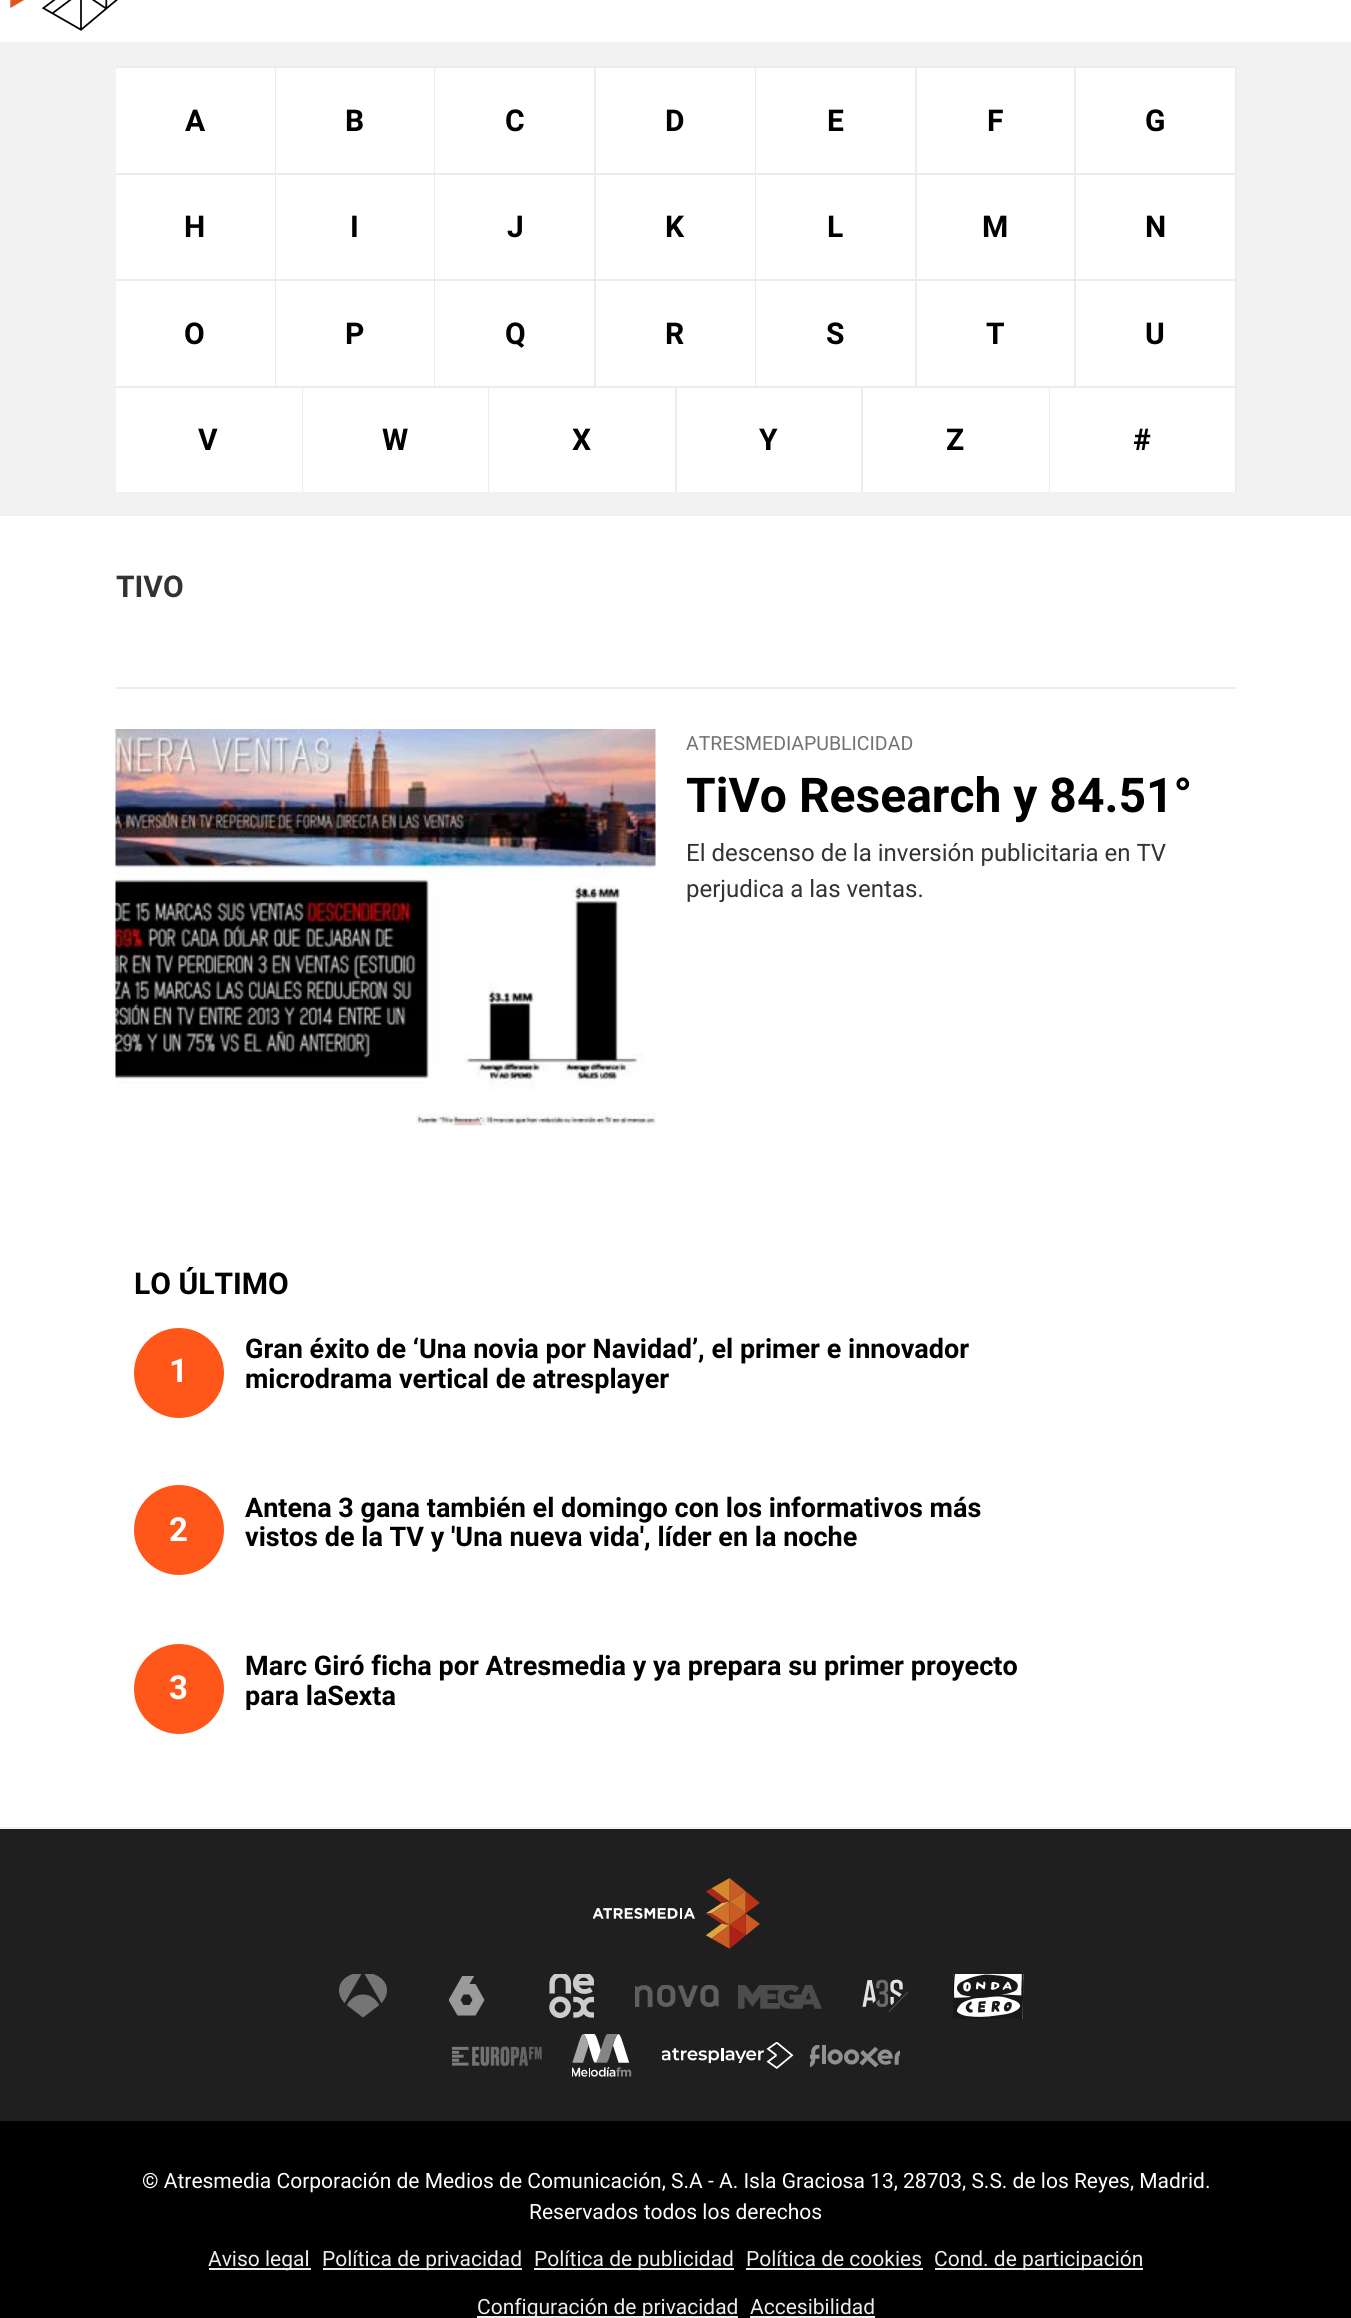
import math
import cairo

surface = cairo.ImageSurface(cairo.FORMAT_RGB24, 1351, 2318)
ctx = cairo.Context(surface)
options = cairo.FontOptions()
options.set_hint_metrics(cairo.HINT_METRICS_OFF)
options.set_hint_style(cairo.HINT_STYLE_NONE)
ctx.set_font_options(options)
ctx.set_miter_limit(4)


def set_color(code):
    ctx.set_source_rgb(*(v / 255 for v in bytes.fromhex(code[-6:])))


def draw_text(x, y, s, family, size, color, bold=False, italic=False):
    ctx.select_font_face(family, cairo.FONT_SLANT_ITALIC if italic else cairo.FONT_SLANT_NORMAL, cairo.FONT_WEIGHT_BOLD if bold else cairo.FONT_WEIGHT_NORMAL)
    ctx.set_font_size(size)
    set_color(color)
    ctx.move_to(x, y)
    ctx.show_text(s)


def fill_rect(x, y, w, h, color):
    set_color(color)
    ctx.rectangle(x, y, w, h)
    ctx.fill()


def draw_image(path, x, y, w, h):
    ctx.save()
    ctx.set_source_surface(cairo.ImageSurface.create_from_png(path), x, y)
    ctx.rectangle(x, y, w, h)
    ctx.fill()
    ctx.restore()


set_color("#ffffff")
ctx.paint()
draw_image("assets/img1.png", 10, 0, 108, 31)
fill_rect(0, 42, 1351, 474, "#f2f2f2")
fill_rect(116, 68, 159, 105, "#ffffff")
fill_rect(116, 66, 1120, 2, "#ececec")
fill_rect(275, 66, 1, 107, "#ececec")
draw_text(185, 131, "A", "Roboto", 30, "#000000", bold=True)
fill_rect(276, 68, 158, 105, "#ffffff")
fill_rect(434, 66, 1, 107, "#ececec")
draw_text(345, 131, "B", "Roboto", 30, "#000000", bold=True)
fill_rect(435, 68, 159, 105, "#ffffff")
fill_rect(594, 66, 2, 107, "#ececec")
draw_text(505, 131, "C", "Roboto", 30, "#000000", bold=True)
fill_rect(596, 68, 159, 105, "#ffffff")
fill_rect(755, 66, 1, 107, "#ececec")
draw_text(665, 131, "D", "Roboto", 30, "#000000", bold=True)
fill_rect(756, 68, 159, 105, "#ffffff")
fill_rect(915, 66, 2, 107, "#ececec")
draw_text(827, 131, "E", "Roboto", 30, "#000000", bold=True)
fill_rect(917, 68, 157, 105, "#ffffff")
fill_rect(1074, 66, 2, 107, "#ececec")
draw_text(987, 131, "F", "Roboto", 30, "#000000", bold=True)
fill_rect(1076, 68, 159, 105, "#ffffff")
fill_rect(1235, 66, 2, 107, "#ececec")
draw_text(1145, 131, "G", "Roboto", 30, "#000000", bold=True)
fill_rect(116, 175, 159, 104, "#ffffff")
fill_rect(116, 173, 1120, 2, "#ececec")
fill_rect(275, 173, 1, 106, "#ececec")
draw_text(184, 237, "H", "Roboto", 30, "#000000", bold=True)
fill_rect(276, 175, 158, 104, "#ffffff")
fill_rect(434, 173, 1, 106, "#ececec")
draw_text(350, 237, "I", "Roboto", 30, "#000000", bold=True)
fill_rect(435, 175, 159, 104, "#ffffff")
fill_rect(594, 173, 2, 106, "#ececec")
draw_text(507, 237, "J", "Roboto", 30, "#000000", bold=True)
fill_rect(596, 175, 159, 104, "#ffffff")
fill_rect(755, 173, 1, 106, "#ececec")
draw_text(665, 237, "K", "Roboto", 30, "#000000", bold=True)
fill_rect(756, 175, 159, 104, "#ffffff")
fill_rect(915, 173, 2, 106, "#ececec")
draw_text(827, 237, "L", "Roboto", 30, "#000000", bold=True)
fill_rect(917, 175, 157, 104, "#ffffff")
fill_rect(1074, 173, 2, 106, "#ececec")
draw_text(982, 237, "M", "Roboto", 30, "#000000", bold=True)
fill_rect(1076, 175, 159, 104, "#ffffff")
fill_rect(1235, 173, 2, 106, "#ececec")
draw_text(1145, 237, "N", "Roboto", 30, "#000000", bold=True)
fill_rect(116, 281, 159, 105, "#ffffff")
fill_rect(116, 279, 1120, 2, "#ececec")
fill_rect(275, 279, 1, 107, "#ececec")
draw_text(184, 344, "O", "Roboto", 30, "#000000", bold=True)
fill_rect(276, 281, 158, 105, "#ffffff")
fill_rect(434, 279, 1, 107, "#ececec")
draw_text(345, 344, "P", "Roboto", 30, "#000000", bold=True)
fill_rect(435, 281, 159, 105, "#ffffff")
fill_rect(594, 279, 2, 107, "#ececec")
draw_text(505, 344, "Q", "Roboto", 30, "#000000", bold=True)
fill_rect(596, 281, 159, 105, "#ffffff")
fill_rect(755, 279, 1, 107, "#ececec")
draw_text(665, 344, "R", "Roboto", 30, "#000000", bold=True)
fill_rect(756, 281, 159, 105, "#ffffff")
fill_rect(915, 279, 2, 107, "#ececec")
draw_text(826, 344, "S", "Roboto", 30, "#000000", bold=True)
fill_rect(917, 281, 157, 105, "#ffffff")
fill_rect(1074, 279, 2, 107, "#ececec")
draw_text(986, 344, "T", "Roboto", 30, "#000000", bold=True)
fill_rect(1076, 281, 159, 105, "#ffffff")
fill_rect(1235, 279, 2, 107, "#ececec")
draw_text(1145, 344, "U", "Roboto", 30, "#000000", bold=True)
fill_rect(116, 388, 186, 104, "#ffffff")
fill_rect(116, 386, 1120, 2, "#ececec")
fill_rect(302, 386, 1, 106, "#ececec")
draw_text(198, 450, "V", "Roboto", 30, "#000000", bold=True)
fill_rect(303, 388, 185, 104, "#ffffff")
fill_rect(488, 386, 1, 106, "#ececec")
draw_text(382, 450, "W", "Roboto", 30, "#000000", bold=True)
fill_rect(489, 388, 186, 104, "#ffffff")
fill_rect(675, 386, 2, 106, "#ececec")
draw_text(572, 450, "X", "Roboto", 30, "#000000", bold=True)
fill_rect(677, 388, 184, 104, "#ffffff")
fill_rect(861, 386, 2, 106, "#ececec")
draw_text(759, 450, "Y", "Roboto", 30, "#000000", bold=True)
fill_rect(863, 388, 186, 104, "#ffffff")
fill_rect(1049, 386, 1, 106, "#ececec")
draw_text(946, 450, "Z", "Roboto", 30, "#000000", bold=True)
fill_rect(1050, 388, 185, 104, "#ffffff")
fill_rect(1235, 386, 2, 106, "#ececec")
draw_text(1133, 450, "#", "Roboto", 30, "#000000", bold=True)
draw_text(116, 597, "TIVO", "Roboto", 30, "#333333", bold=True)
fill_rect(116, 687, 1120, 2, "#ececec")
draw_image("assets/img2.png", 115, 729, 541, 397)
draw_text(686, 750, "ATRESMEDIAPUBLICIDAD", "Roboto", 19.5, "#727272")
draw_text(686, 812, "TiVo Research y 84.51°", "Roboto", 48, "#000000", bold=True)
draw_text(686, 861, "El descenso de la inversión publicitaria en TV", "Roboto", 24, "#333333")
draw_text(686, 897, "perjudica a las ventas.", "Roboto", 24, "#333333")
draw_text(134, 1294, "LO ÚLTIMO", "Roboto", 30, "#000000", bold=True)
set_color("#ff5719")
ctx.new_path()
ctx.arc(179, 1373, 45, 0, 2 * math.pi)
ctx.fill()
draw_text(169, 1382, "1", "Roboto", 33, "#ffffff", bold=True)
draw_text(245, 1358, "Gran éxito de ‘Una novia por Navidad’, el primer e innovador", "Roboto", 27, "#000000", bold=True)
draw_text(245, 1388, "microdrama vertical de atresplayer", "Roboto", 27, "#000000", bold=True)
set_color("#ff5719")
ctx.new_path()
ctx.arc(179, 1530, 45, 0, 2 * math.pi)
ctx.fill()
draw_text(169, 1541, "2", "Roboto", 33, "#ffffff", bold=True)
draw_text(245, 1517, "Antena 3 gana también el domingo con los informativos más", "Roboto", 27, "#000000", bold=True)
draw_text(245, 1546, "vistos de la TV y 'Una nueva vida', líder en la noche", "Roboto", 27, "#000000", bold=True)
set_color("#ff5719")
ctx.new_path()
ctx.arc(179, 1689, 45, 0, 2 * math.pi)
ctx.fill()
draw_text(169, 1699, "3", "Roboto", 33, "#ffffff", bold=True)
draw_text(245, 1675, "Marc Giró ficha por Atresmedia y ya prepara su primer proyecto", "Roboto", 27, "#000000", bold=True)
ctx.save()
ctx.rectangle(245, 1652, 792, 58)
ctx.clip()
draw_text(245, 1705, "para laSexta", "Roboto", 27, "#000000", bold=True)
ctx.restore()
fill_rect(0, 1827, 1351, 2, "#f2f2f2")
fill_rect(0, 1829, 1351, 292, "#1f1f1f")
draw_image("assets/img3.png", 593, 1878, 167, 71)
draw_image("assets/img4.png", 339, 1974, 48, 44)
ctx.save()
ctx.rectangle(449, 1976, 36, 40)
ctx.clip()
set_color("#9a9a9a")
ctx.new_path()
ctx.move_to(475.5, 1984)
ctx.line_to(469.5, 1984)
ctx.line_to(474.5, 1975.5)
ctx.line_to(462.5, 1975.5)
ctx.line_to(448.5, 2000)
ctx.line_to(457.5, 2015.5)
ctx.line_to(475.5, 2015.5)
ctx.line_to(484.5, 2000)
ctx.close_path()
ctx.move_to(469.5, 2005)
ctx.line_to(463.5, 2005)
ctx.line_to(460.5, 2000)
ctx.line_to(463.5, 1994.5)
ctx.line_to(469.5, 1994.5)
ctx.line_to(472.5, 2000)
ctx.close_path()
ctx.fill()
ctx.restore()
draw_image("assets/img5.png", 549, 1974, 45, 45)
draw_image("assets/img6.png", 635, 1985, 84, 22)
draw_image("assets/img7.png", 738, 1985, 84, 24)
draw_image("assets/img8.png", 862, 1979, 47, 33)
draw_image("assets/img9.png", 953, 1974, 71, 45)
draw_image("assets/img10.png", 452, 2046, 90, 20)
draw_image("assets/img11.png", 572, 2034, 60, 43)
draw_image("assets/img12.png", 662, 2042, 132, 27)
draw_image("assets/img13.png", 810, 2045, 90, 22)
fill_rect(0, 2121, 1351, 197, "#000000")
draw_text(142, 2188, "© Atresmedia Corporación de Medios de Comunicación, S.A - A. Isla Graciosa 13, 28703, S.S. de los Reyes, Madrid.", "Roboto", 21, "#ffffff")
draw_text(529, 2219, "Reservados todos los derechos", "Roboto", 21, "#ffffff")
fill_rect(209, 2268, 102, 2, "#ececec")
draw_text(208, 2266, "Aviso legal", "Roboto", 21, "#ececec")
fill_rect(323, 2268, 199, 2, "#ececec")
draw_text(322, 2266, "Política de privacidad", "Roboto", 21, "#ececec")
fill_rect(534, 2268, 200, 2, "#ececec")
draw_text(534, 2266, "Política de publicidad", "Roboto", 21, "#ececec")
draw_text(746, 2266, "Política de cookies", "Roboto", 21, "#ececec")
fill_rect(746, 2268, 177, 2, "#ececec")
fill_rect(935, 2268, 208, 2, "#ececec")
draw_text(934, 2266, "Cond. de participación", "Roboto", 21, "#ececec")
fill_rect(477, 2316, 261, 2, "#ececec")
draw_text(477, 2314, "Configuración de privacidad", "Roboto", 21, "#ececec")
draw_text(750, 2314, "Accesibilidad", "Roboto", 21, "#ececec")
fill_rect(750, 2316, 125, 2, "#ececec")
surface.write_to_png("output.png")
